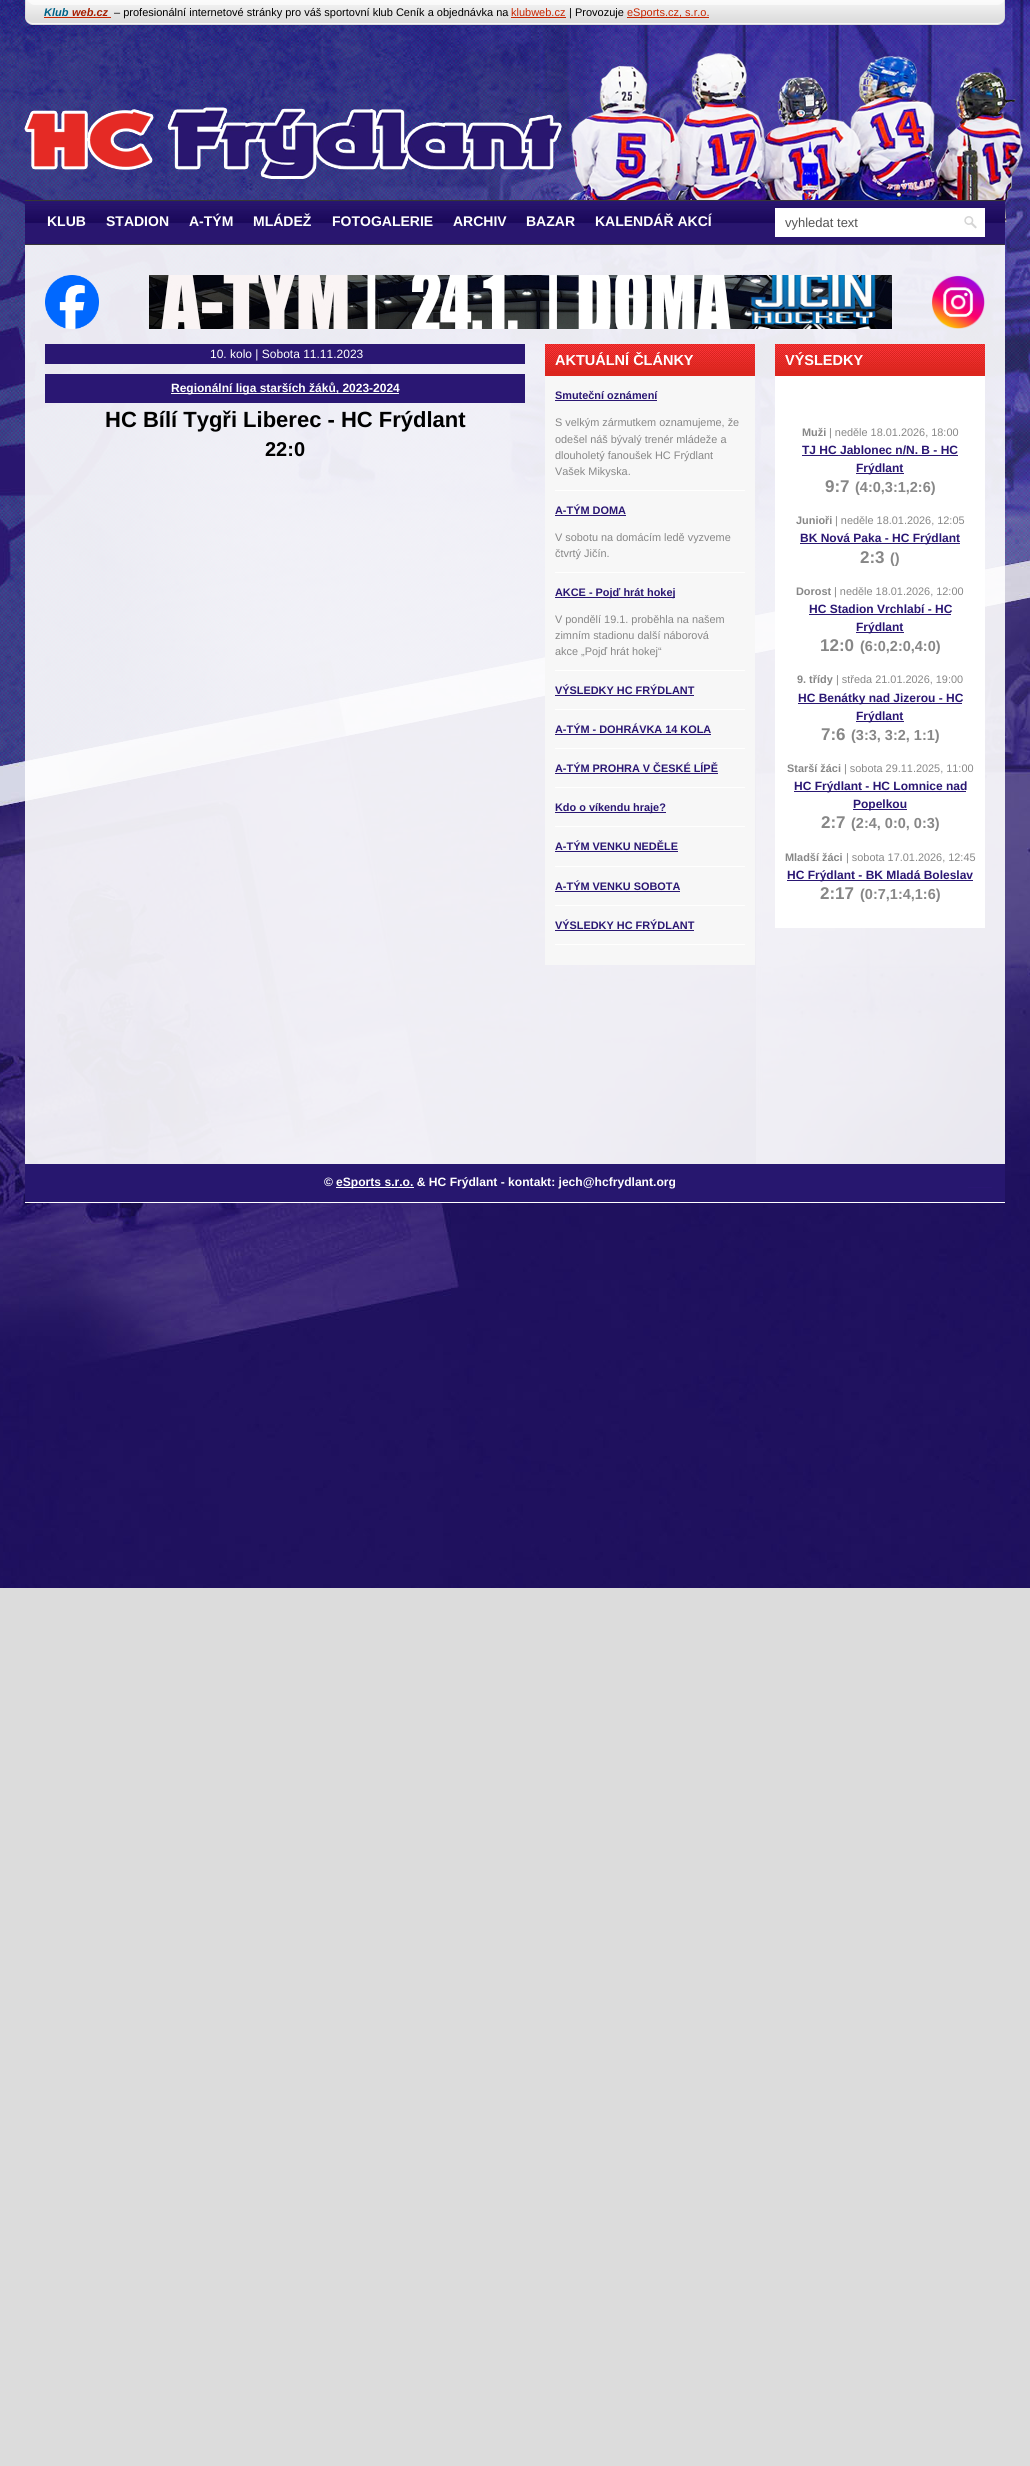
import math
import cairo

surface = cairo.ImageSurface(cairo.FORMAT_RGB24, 1030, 2466)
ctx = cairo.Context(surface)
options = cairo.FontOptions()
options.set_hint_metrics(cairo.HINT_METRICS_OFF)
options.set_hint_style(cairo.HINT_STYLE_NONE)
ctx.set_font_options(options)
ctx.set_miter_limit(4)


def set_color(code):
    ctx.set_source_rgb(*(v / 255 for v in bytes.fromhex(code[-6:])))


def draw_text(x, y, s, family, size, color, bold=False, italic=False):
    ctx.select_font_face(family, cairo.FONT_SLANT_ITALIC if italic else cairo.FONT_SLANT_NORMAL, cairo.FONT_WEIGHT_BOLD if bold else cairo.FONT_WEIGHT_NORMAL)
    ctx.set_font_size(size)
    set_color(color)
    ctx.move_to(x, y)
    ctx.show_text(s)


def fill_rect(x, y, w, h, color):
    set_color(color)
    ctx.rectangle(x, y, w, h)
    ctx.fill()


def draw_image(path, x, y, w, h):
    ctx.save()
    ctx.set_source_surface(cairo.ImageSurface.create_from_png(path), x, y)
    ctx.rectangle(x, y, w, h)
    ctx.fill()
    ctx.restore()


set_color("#dcdcdc")
ctx.paint()
draw_image("assets/img1.png", 0, 0, 1030, 1588)
draw_image("assets/img2.png", 24, 53, 999, 169)
draw_image("assets/img3.png", 25, 0, 980, 25)
draw_text(44, 16, "Klub", "Liberation Sans", 11, "#006287", bold=True, italic=True)
fill_rect(44, 17, 67, 1, "#c92500")
draw_text(72, 16, "web.cz", "Liberation Sans", 11, "#a61d00", bold=True, italic=True)
draw_text(114, 16, "– profesionální internetové stránky pro váš sportovní klub Ceník a objednávka na", "Liberation Sans", 11, "#000000")
draw_text(511, 16, "klubweb.cz", "Liberation Sans", 11, "#c92500")
fill_rect(511, 17, 55, 1, "#c92500")
draw_text(569, 16, "| Provozuje", "Liberation Sans", 11, "#000000")
fill_rect(627, 17, 82, 1, "#c92500")
draw_text(627, 16, "eSports.cz, s.r.o.", "Liberation Sans", 11, "#c92500")
draw_image("assets/img4.png", 25, 200, 980, 45)
draw_text(47, 226, "KLUB", "Liberation Sans", 14, "#ffffff", bold=True)
draw_text(106, 226, "STADION", "Liberation Sans", 14, "#ffffff", bold=True)
draw_text(189, 226, "A-TÝM", "Liberation Sans", 14, "#ffffff", bold=True)
draw_text(253, 226, "MLÁDEŽ", "Liberation Sans", 14, "#ffffff", bold=True)
draw_text(332, 226, "FOTOGALERIE", "Liberation Sans", 14, "#ffffff", bold=True)
draw_text(453, 226, "ARCHIV", "Liberation Sans", 14, "#ffffff", bold=True)
draw_text(526, 226, "BAZAR", "Liberation Sans", 14, "#ffffff", bold=True)
draw_text(595, 226, "KALENDÁŘ AKCÍ", "Liberation Sans", 14, "#ffffff", bold=True)
fill_rect(775, 208, 210, 29, "#ffffff")
draw_image("assets/img5.png", 964, 216, 18, 19)
draw_text(785, 227, "vyhledat text", "Liberation Sans", 13, "#555555")
ctx.set_source_rgba(1, 1, 1, 0.9)
ctx.rectangle(25, 245, 980, 919)
ctx.fill()
draw_image("assets/img6.png", 45, 275, 54, 54)
draw_image("assets/img7.png", 149, 275, 743, 54)
draw_image("assets/img8.png", 931, 275, 54, 54)
fill_rect(45, 344, 480, 20, "#2a1773")
draw_text(210, 358, "10. kolo | Sobota 11.11.2023", "Liberation Sans", 12, "#ffffff")
fill_rect(45, 374, 480, 29, "#2a1773")
fill_rect(171, 393, 228, 1, "#ffffff")
draw_text(171, 392, "Regionální liga starších žáků, 2023-2024", "Liberation Sans", 12, "#ffffff", bold=True)
draw_text(105, 427, "HC Bílí Tygři Liberec - HC Frýdlant", "Liberation Sans", 22, "#000000", bold=True)
draw_text(265, 456, "22:0", "Liberation Sans", 20, "#000000", bold=True)
draw_image("assets/img9.png", 545, 344, 210, 32)
draw_text(555, 365, "AKTUÁLNÍ ČLÁNKY", "Liberation Sans", 14.5, "#ffffff", bold=True)
fill_rect(545, 376, 210, 589, "#f7f7f7")
draw_text(555, 399, "Smuteční oznámení", "Liberation Sans", 10.9, "#2a1773", bold=True)
fill_rect(555, 400, 102, 1, "#2a1773")
draw_text(555, 426, "S velkým zármutkem oznamujeme, že", "Liberation Sans", 10.9, "#878787")
draw_text(555, 443, "odešel náš bývalý trenér mládeže a", "Liberation Sans", 10.9, "#878787")
draw_text(555, 459, "dlouholetý fanoušek HC Frýdlant", "Liberation Sans", 10.9, "#878787")
draw_text(555, 475, "Vašek Mikyska.", "Liberation Sans", 10.9, "#878787")
fill_rect(555, 490, 190, 1, "#fffffe")
draw_text(555, 514, "A-TÝM DOMA", "Liberation Sans", 10.9, "#2a1773", bold=True)
fill_rect(555, 515, 71, 1, "#2a1773")
draw_text(555, 541, "V sobotu na domácím ledě vyzveme", "Liberation Sans", 10.9, "#878787")
draw_text(555, 557, "čtvrtý Jičín.", "Liberation Sans", 10.9, "#878787")
fill_rect(555, 572, 190, 1, "#fffffe")
fill_rect(555, 597, 120, 1, "#2a1773")
draw_text(555, 596, "AKCE - Pojď hrát hokej", "Liberation Sans", 10.9, "#2a1773", bold=True)
draw_text(555, 623, "V pondělí 19.1. proběhla na našem", "Liberation Sans", 10.9, "#878787")
draw_text(555, 639, "zimním stadionu další náborová", "Liberation Sans", 10.9, "#878787")
draw_text(555, 655, "akce „Pojď hrát hokej“", "Liberation Sans", 10.9, "#878787")
fill_rect(555, 670, 190, 1, "#fffffe")
draw_text(555, 694, "VÝSLEDKY HC FRÝDLANT", "Liberation Sans", 10.9, "#2a1773", bold=True)
fill_rect(555, 695, 139, 1, "#2a1773")
fill_rect(555, 709, 190, 1, "#fffffe")
draw_text(555, 733, "A-TÝM - DOHRÁVKA 14 KOLA", "Liberation Sans", 10.9, "#2a1773", bold=True)
fill_rect(555, 734, 156, 1, "#2a1773")
fill_rect(555, 748, 190, 1, "#fffffe")
draw_text(555, 772, "A-TÝM PROHRA V ČESKÉ LÍPĚ", "Liberation Sans", 10.9, "#2a1773", bold=True)
fill_rect(555, 773, 163, 1, "#2a1773")
fill_rect(555, 787, 190, 1, "#fffffe")
fill_rect(555, 812, 111, 1, "#2a1773")
draw_text(555, 811, "Kdo o víkendu hraje?", "Liberation Sans", 10.9, "#2a1773", bold=True)
fill_rect(555, 826, 190, 1, "#fffffe")
draw_text(555, 850, "A-TÝM VENKU NEDĚLE", "Liberation Sans", 10.9, "#2a1773", bold=True)
fill_rect(555, 851, 123, 1, "#2a1773")
fill_rect(555, 866, 190, 1, "#fffffe")
draw_text(555, 890, "A-TÝM VENKU SOBOTA", "Liberation Sans", 10.9, "#2a1773", bold=True)
fill_rect(555, 891, 125, 1, "#2a1773")
fill_rect(555, 905, 190, 1, "#fffffe")
draw_text(555, 929, "VÝSLEDKY HC FRÝDLANT", "Liberation Sans", 10.9, "#2a1773", bold=True)
fill_rect(555, 930, 139, 1, "#2a1773")
fill_rect(555, 944, 190, 1, "#fffffe")
draw_image("assets/img9.png", 775, 344, 210, 32)
draw_text(785, 365, "VÝSLEDKY", "Liberation Sans", 14.5, "#ffffff", bold=True)
fill_rect(775, 376, 210, 552, "#ffffff")
draw_text(802, 436, "Muži", "Liberation Sans", 10.9, "#878787", bold=True)
draw_text(829, 436, "| neděle 18.01.2026, 18:00", "Liberation Sans", 10.9, "#878787")
draw_text(802, 454, "TJ HC Jablonec n/N. B - HC", "Liberation Sans", 12, "#2a1773", bold=True)
fill_rect(802, 455, 156, 1, "#2a1773")
fill_rect(856, 473, 48, 1, "#2a1773")
draw_text(856, 472, "Frýdlant", "Liberation Sans", 12, "#2a1773", bold=True)
draw_text(825, 492, "9:7", "Liberation Sans", 17, "#878787", bold=True)
draw_text(855, 492, "(4:0,3:1,2:6)", "Liberation Sans", 14.5, "#878787", bold=True)
draw_text(796, 524, "Junioři", "Liberation Sans", 10.9, "#878787", bold=True)
draw_text(835, 524, "| neděle 18.01.2026, 12:05", "Liberation Sans", 10.9, "#878787")
fill_rect(800, 543, 160, 1, "#2a1773")
draw_text(800, 542, "BK Nová Paka - HC Frýdlant", "Liberation Sans", 12, "#2a1773", bold=True)
draw_text(860, 563, "2:3", "Liberation Sans", 17, "#878787", bold=True)
draw_text(890, 563, "()", "Liberation Sans", 14.5, "#878787", bold=True)
draw_text(796, 595, "Dorost", "Liberation Sans", 10.9, "#878787", bold=True)
draw_text(834, 595, "| neděle 18.01.2026, 12:00", "Liberation Sans", 10.9, "#878787")
draw_text(809, 613, "HC Stadion Vrchlabí - HC", "Liberation Sans", 12, "#2a1773", bold=True)
fill_rect(809, 614, 142, 1, "#2a1773")
fill_rect(856, 632, 48, 1, "#2a1773")
draw_text(856, 631, "Frýdlant", "Liberation Sans", 12, "#2a1773", bold=True)
draw_text(820, 651, "12:0", "Liberation Sans", 17, "#878787", bold=True)
draw_text(860, 651, "(6:0,2:0,4:0)", "Liberation Sans", 14.5, "#878787", bold=True)
draw_text(797, 683, "9. třídy", "Liberation Sans", 10.9, "#878787", bold=True)
draw_text(836, 683, "| středa 21.01.2026, 19:00", "Liberation Sans", 10.9, "#878787")
fill_rect(798, 703, 164, 1, "#2a1773")
draw_text(798, 702, "HC Benátky nad Jizerou - HC", "Liberation Sans", 12, "#2a1773", bold=True)
fill_rect(856, 721, 48, 1, "#2a1773")
draw_text(856, 720, "Frýdlant", "Liberation Sans", 12, "#2a1773", bold=True)
draw_text(821, 740, "7:6", "Liberation Sans", 17, "#878787", bold=True)
draw_text(851, 740, "(3:3, 3:2, 1:1)", "Liberation Sans", 14.5, "#878787", bold=True)
draw_text(787, 772, "Starší žáci", "Liberation Sans", 10.9, "#878787", bold=True)
draw_text(844, 772, "| sobota 29.11.2025, 11:00", "Liberation Sans", 10.9, "#878787")
fill_rect(794, 791, 172, 1, "#2a1773")
draw_text(794, 790, "HC Frýdlant - HC Lomnice nad", "Liberation Sans", 12, "#2a1773", bold=True)
fill_rect(853, 809, 54, 1, "#2a1773")
draw_text(853, 808, "Popelkou", "Liberation Sans", 12, "#2a1773", bold=True)
draw_text(821, 828, "2:7", "Liberation Sans", 17, "#878787", bold=True)
draw_text(851, 828, "(2:4, 0:0, 0:3)", "Liberation Sans", 14.5, "#878787", bold=True)
draw_text(785, 861, "Mladší žáci", "Liberation Sans", 10.9, "#878787", bold=True)
draw_text(846, 861, "| sobota 17.01.2026, 12:45", "Liberation Sans", 10.9, "#878787")
fill_rect(787, 880, 186, 1, "#2a1773")
draw_text(787, 879, "HC Frýdlant - BK Mladá Boleslav", "Liberation Sans", 12, "#2a1773", bold=True)
draw_text(820, 899, "2:17", "Liberation Sans", 17, "#878787", bold=True)
draw_text(860, 899, "(0:7,1:4,1:6)", "Liberation Sans", 14.5, "#878787", bold=True)
fill_rect(25, 1164, 980, 38, "#27176f")
fill_rect(25, 1202, 980, 1, "#ffffff")
draw_text(324, 1186, "©", "Liberation Sans", 12.1, "#ffffff", bold=True)
fill_rect(336, 1187, 78, 1, "#ffffff")
draw_text(336, 1186, "eSports s.r.o. & HC Frýdlant - kontakt: jech@hcfrydlant.org", "Liberation Sans", 12.1, "#ffffff", bold=True)
fill_rect(968, 1187, 24, 1, "#2a1773")
surface.write_to_png("output.png")
